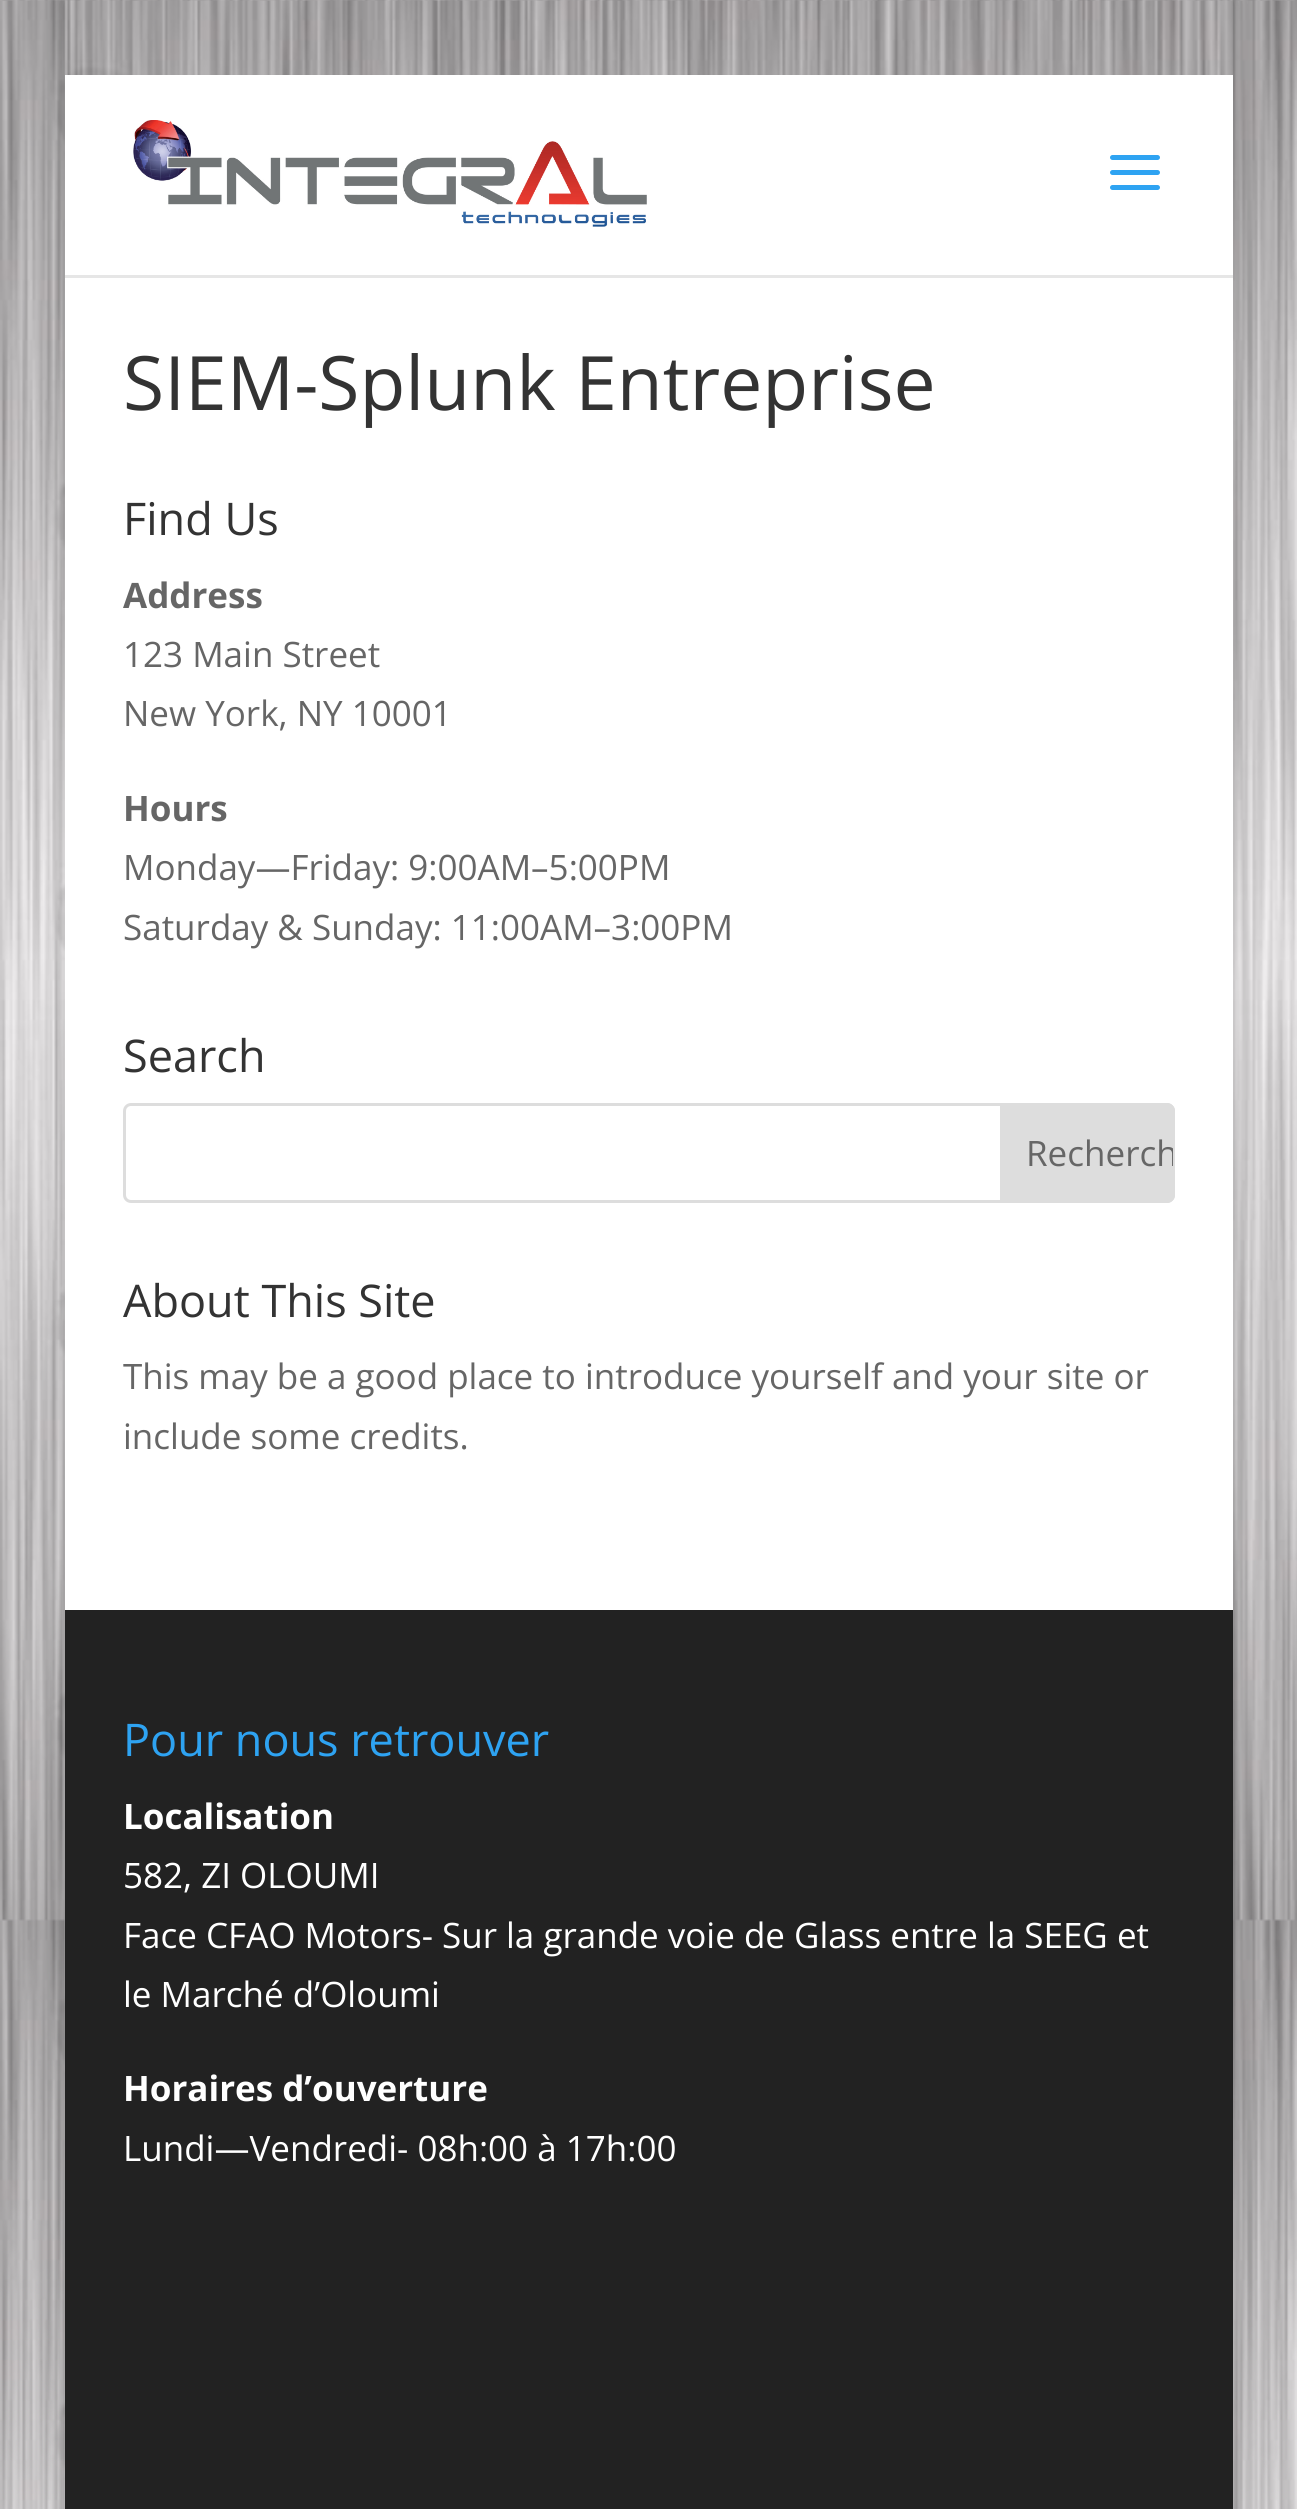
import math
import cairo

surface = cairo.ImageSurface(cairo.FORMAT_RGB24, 1297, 2509)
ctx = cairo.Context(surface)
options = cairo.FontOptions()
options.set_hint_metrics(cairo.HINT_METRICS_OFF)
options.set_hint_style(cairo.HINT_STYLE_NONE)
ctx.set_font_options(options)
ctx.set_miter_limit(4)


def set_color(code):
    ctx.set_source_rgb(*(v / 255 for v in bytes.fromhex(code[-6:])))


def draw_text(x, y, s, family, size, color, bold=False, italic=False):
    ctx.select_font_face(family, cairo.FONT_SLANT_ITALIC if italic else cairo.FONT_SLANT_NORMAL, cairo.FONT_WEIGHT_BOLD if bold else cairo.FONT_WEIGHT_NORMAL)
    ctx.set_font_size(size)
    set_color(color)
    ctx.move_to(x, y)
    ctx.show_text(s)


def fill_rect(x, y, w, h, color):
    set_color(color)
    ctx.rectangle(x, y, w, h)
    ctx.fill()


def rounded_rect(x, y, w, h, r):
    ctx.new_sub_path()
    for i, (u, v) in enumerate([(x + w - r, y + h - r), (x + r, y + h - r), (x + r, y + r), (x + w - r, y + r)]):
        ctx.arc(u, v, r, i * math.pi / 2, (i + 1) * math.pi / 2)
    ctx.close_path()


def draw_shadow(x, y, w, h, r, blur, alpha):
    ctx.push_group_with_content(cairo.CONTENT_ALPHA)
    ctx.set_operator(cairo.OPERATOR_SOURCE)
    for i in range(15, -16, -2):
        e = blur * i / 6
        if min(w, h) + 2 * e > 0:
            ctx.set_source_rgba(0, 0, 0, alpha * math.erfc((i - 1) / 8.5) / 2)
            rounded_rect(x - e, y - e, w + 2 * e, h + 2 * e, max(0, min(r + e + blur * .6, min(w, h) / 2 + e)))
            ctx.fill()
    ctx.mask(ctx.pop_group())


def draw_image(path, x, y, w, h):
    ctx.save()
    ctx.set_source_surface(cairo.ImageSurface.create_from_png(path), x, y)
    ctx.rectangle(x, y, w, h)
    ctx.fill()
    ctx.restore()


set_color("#ffffff")
ctx.paint()
draw_image("assets/img1.png", 0, 0, 1297, 2509)
ctx.save()
ctx.set_fill_rule(cairo.FILL_RULE_EVEN_ODD)
ctx.new_path()
ctx.move_to(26, 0)
ctx.line_to(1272, 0)
ctx.line_to(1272, 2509)
ctx.line_to(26, 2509)
ctx.close_path()
ctx.move_to(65, 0)
ctx.line_to(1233, 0)
ctx.line_to(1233, 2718)
ctx.line_to(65, 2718)
ctx.close_path()
ctx.clip()
set_color("#000000")
draw_shadow(65, 0, 1168, 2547, 0, 12.5, 0.2)
ctx.restore()
fill_rect(65, 275, 1168, 1335, "#ffffff")
ctx.set_source_rgba(0, 0, 0, 0.1)
ctx.new_path()
ctx.move_to(65, 275)
ctx.line_to(65, 278)
ctx.line_to(1233, 278)
ctx.line_to(1233, 78)
ctx.line_to(1232, 78)
ctx.line_to(1232, 275)
ctx.close_path()
ctx.fill()
fill_rect(65, 75, 1168, 200, "#ffffff")
draw_image("assets/img2.png", 133, 120, 514, 107)
draw_image("assets/img3.png", 1110, 155, 50, 35)
draw_text(123, 410, "SIEM-Splunk Entreprise", "Open Sans", 75, "#333333")
draw_text(123, 535, "Find Us", "Open Sans", 45, "#333333")
draw_text(123, 608, "Address", "Open Sans", 35, "#666666", bold=True)
draw_text(123, 667, "123 Main Street", "Open Sans", 35, "#666666")
draw_text(123, 726, "New York, NY 10001", "Open Sans", 35, "#666666")
draw_text(123, 821, "Hours", "Open Sans", 35, "#666666", bold=True)
draw_text(123, 880, "Monday—Friday: 9:00AM–5:00PM", "Open Sans", 35, "#666666")
draw_text(123, 940, "Saturday & Sunday: 11:00AM–3:00PM", "Open Sans", 35, "#666666")
draw_text(123, 1072, "Search", "Open Sans", 45, "#333333")
rounded_rect(124.5, 1104.5, 1049, 97, 6.5)
set_color("#dddddd")
ctx.set_line_width(3)
ctx.stroke()
ctx.new_path()
ctx.move_to(1001.5, 1104.5)
ctx.line_to(1167, 1104.5)
ctx.curve_to(1170.5, 1104.5, 1173.5, 1107.5, 1173.5, 1111)
ctx.line_to(1173.5, 1195)
ctx.curve_to(1173.5, 1198.5, 1170.5, 1201.5, 1167, 1201.5)
ctx.line_to(1001.5, 1201.5)
ctx.close_path()
ctx.fill_preserve()
ctx.stroke()
ctx.save()
ctx.new_path()
ctx.move_to(1003, 1105)
ctx.line_to(1168, 1105)
ctx.curve_to(1171, 1105, 1173, 1107, 1173, 1110)
ctx.line_to(1173, 1195)
ctx.curve_to(1173, 1198, 1171, 1200, 1168, 1200)
ctx.line_to(1003, 1200)
ctx.close_path()
ctx.clip()
draw_text(1026, 1166, "Recherch", "Open Sans", 35, "#666666")
ctx.restore()
draw_text(123, 1317, "About This Site", "Open Sans", 45, "#333333")
draw_text(123, 1389, "This may be a good place to introduce yourself and your site or", "Open Sans", 35, "#666666")
draw_text(123, 1449, "include some credits.", "Open Sans", 35, "#666666")
fill_rect(65, 1610, 1168, 899, "#222222")
draw_text(123, 1756, "Pour nous retrouver", "Open Sans", 45, "#2ea3f2")
draw_text(123, 1829, "Localisation", "Open Sans", 35, "#ffffff", bold=True)
draw_text(123, 1888, "582, ZI OLOUMI", "Open Sans", 35, "#ffffff")
draw_text(123, 1948, "Face CFAO Motors- Sur la grande voie de Glass entre la SEEG et", "Open Sans", 35, "#ffffff")
draw_text(123, 2007, "le Marché d’Oloumi", "Open Sans", 35, "#ffffff")
draw_text(123, 2101, "Horaires d’ouverture", "Open Sans", 35, "#ffffff", bold=True)
draw_text(123, 2161, "Lundi—Vendredi- 08h:00 à 17h:00", "Open Sans", 35, "#ffffff")
surface.write_to_png("output.png")
